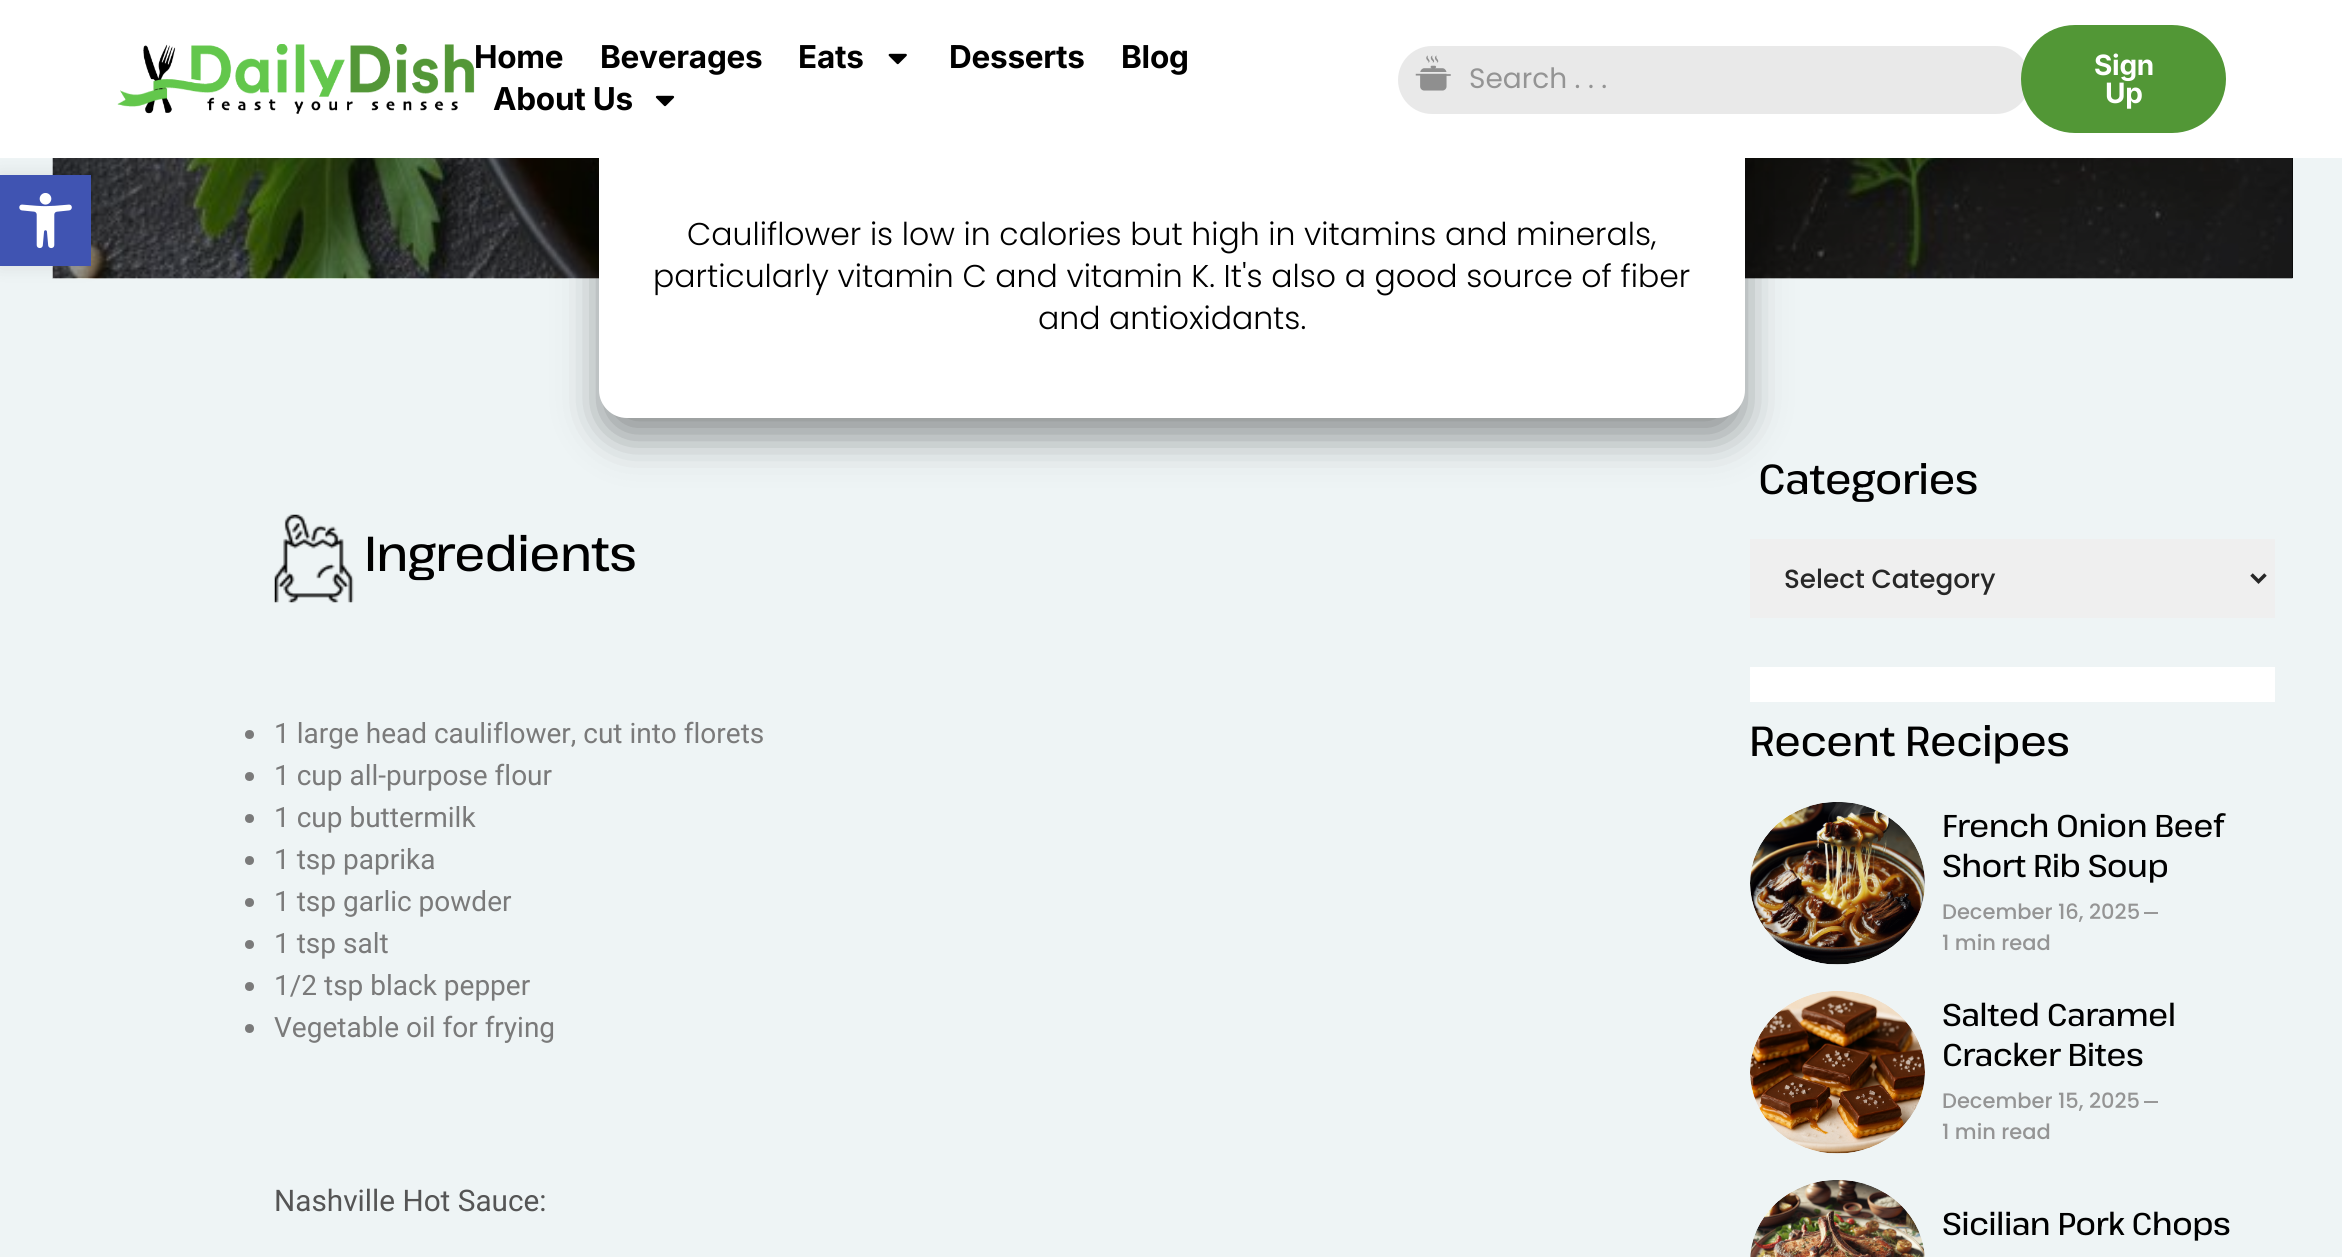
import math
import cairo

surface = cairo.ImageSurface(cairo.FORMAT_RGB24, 2342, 1257)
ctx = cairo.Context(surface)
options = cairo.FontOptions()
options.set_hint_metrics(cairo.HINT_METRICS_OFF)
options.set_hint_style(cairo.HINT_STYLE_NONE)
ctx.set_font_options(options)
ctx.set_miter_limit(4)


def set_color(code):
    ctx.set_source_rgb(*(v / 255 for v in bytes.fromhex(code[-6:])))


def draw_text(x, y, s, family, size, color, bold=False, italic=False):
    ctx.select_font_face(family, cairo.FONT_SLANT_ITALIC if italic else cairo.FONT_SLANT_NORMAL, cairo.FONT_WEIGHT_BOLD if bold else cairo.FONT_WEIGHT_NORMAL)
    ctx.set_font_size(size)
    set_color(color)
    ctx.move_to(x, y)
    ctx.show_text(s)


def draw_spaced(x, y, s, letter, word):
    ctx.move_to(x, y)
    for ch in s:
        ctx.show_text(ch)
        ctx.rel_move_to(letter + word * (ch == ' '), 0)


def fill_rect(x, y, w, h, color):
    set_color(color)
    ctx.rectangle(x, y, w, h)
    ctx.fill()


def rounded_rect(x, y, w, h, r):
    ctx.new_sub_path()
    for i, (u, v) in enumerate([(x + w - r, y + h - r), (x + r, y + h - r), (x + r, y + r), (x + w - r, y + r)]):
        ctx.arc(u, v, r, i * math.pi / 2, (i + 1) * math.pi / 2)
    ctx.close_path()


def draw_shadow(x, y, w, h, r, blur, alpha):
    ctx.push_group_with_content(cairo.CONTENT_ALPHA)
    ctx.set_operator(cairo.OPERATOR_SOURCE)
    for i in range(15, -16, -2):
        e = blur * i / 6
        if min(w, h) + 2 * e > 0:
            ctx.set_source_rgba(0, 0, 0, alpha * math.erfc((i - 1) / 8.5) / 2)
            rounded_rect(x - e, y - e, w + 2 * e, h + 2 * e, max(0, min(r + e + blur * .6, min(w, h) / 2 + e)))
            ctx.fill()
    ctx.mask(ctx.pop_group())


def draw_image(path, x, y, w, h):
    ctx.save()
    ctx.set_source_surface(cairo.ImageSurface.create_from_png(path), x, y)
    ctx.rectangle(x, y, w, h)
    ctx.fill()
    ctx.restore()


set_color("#eef4f5")
ctx.paint()
fill_rect(53, 158, 2240, 120, "#000000")
draw_image("assets/img6.png", 52, 158, 2241, 121)
set_color("#000000")
draw_shadow(599, 53, 1146, 385, 28, 20, 0.4)
set_color("#ffffff")
rounded_rect(599, 33, 1146, 385, 28)
ctx.fill()
fill_rect(0, 0, 2342, 158, "#ffffff")
draw_image("assets/img1.png", 117, 44, 358, 70)
ctx.select_font_face("Inter", cairo.FONT_SLANT_NORMAL, cairo.FONT_WEIGHT_BOLD)
ctx.set_font_size(31.5)
set_color("#000000")
draw_spaced(474, 68, "Home", -0.25, 0)
draw_spaced(600, 68, "Beverages", -0.25, 0)
draw_spaced(798, 68, "Eats", -0.25, 0)
draw_image("assets/img2.png", 888, 53, 19, 12)
draw_spaced(949, 68, "Desserts", -0.25, 0)
draw_spaced(1121, 68, "Blog", -0.25, 0)
draw_spaced(493, 110, "About Us", -0.25, 0)
draw_image("assets/img3.png", 655, 95, 20, 12)
set_color("#e9e9e9")
rounded_rect(1398, 46, 632, 68, 34)
ctx.fill()
draw_image("assets/img4.png", 1415, 55, 36, 36)
draw_text(1469, 88, "Search . . .", "Poppins", 28, "#949494")
set_color("#529736")
rounded_rect(2021, 25, 205, 108, 54)
ctx.fill()
ctx.select_font_face("Inter", cairo.FONT_SLANT_NORMAL, cairo.FONT_WEIGHT_BOLD)
set_color("#ffffff")
draw_spaced(2094, 75, "Sign", -0.25, 0)
draw_spaced(2105, 103, "Up", -0.25, 0)
set_color("#000000")
draw_shadow(0, 175, 91, 91, 0, 9, 0.1)
fill_rect(0, 175, 91, 91, "#4054b2")
draw_image("assets/img5.png", 19, 193, 53, 56)
draw_text(687, 245, "Cauliflower is low in calories but high in vitamins and minerals,", "Poppins Light", 31.5, "#000000")
draw_text(653, 287, "particularly vitamin C and vitamin K. It's also a good source of fiber", "Poppins Light", 31.5, "#000000")
draw_text(1038, 329, "and antioxidants.", "Poppins Light", 31.5, "#000000")
draw_image("assets/img7.png", 274, 514, 80, 89)
ctx.select_font_face("Pathway Extreme Thin")
ctx.set_font_size(49)
draw_spaced(364, 571, "Ingredients", -1, 0)
set_color("#7a7a7a")
ctx.new_path()
ctx.arc(249.5, 734.5, 4.5, 0, 2 * math.pi)
ctx.fill()
draw_text(274, 743, "1 large head cauliflower, cut into florets", "Roboto", 28, "#7a7a7a")
ctx.new_path()
ctx.arc(249.5, 776.5, 4.5, 0, 2 * math.pi)
ctx.fill()
draw_text(274, 785, "1 cup all-purpose flour", "Roboto", 28, "#7a7a7a")
ctx.new_path()
ctx.arc(249.5, 818.5, 4.5, 0, 2 * math.pi)
ctx.fill()
draw_text(274, 827, "1 cup buttermilk", "Roboto", 28, "#7a7a7a")
ctx.new_path()
ctx.arc(249.5, 860.5, 4.5, 0, 2 * math.pi)
ctx.fill()
draw_text(274, 869, "1 tsp paprika", "Roboto", 28, "#7a7a7a")
ctx.new_path()
ctx.arc(249.5, 902.5, 4.5, 0, 2 * math.pi)
ctx.fill()
draw_text(274, 911, "1 tsp garlic powder", "Roboto", 28, "#7a7a7a")
ctx.new_path()
ctx.arc(249.5, 944.5, 4.5, 0, 2 * math.pi)
ctx.fill()
draw_text(274, 953, "1 tsp salt", "Roboto", 28, "#7a7a7a")
ctx.new_path()
ctx.arc(249.5, 986.5, 4.5, 0, 2 * math.pi)
ctx.fill()
draw_text(274, 995, "1/2 tsp black pepper", "Roboto", 28, "#7a7a7a")
ctx.new_path()
ctx.arc(249.5, 1028.5, 4.5, 0, 2 * math.pi)
ctx.fill()
draw_text(274, 1037, "Vegetable oil for frying", "Roboto", 28, "#7a7a7a")
draw_text(274, 1211, "Nashville Hot Sauce:", "Roboto", 29.75, "#555555")
ctx.select_font_face("Pathway Extreme Thin")
ctx.set_font_size(42)
set_color("#000000")
draw_spaced(1758, 494, "Categories", -0.8, 0)
fill_rect(1750, 539, 525, 79, "#efefef")
ctx.new_path()
ctx.move_to(2251.5, 574.5)
ctx.line_to(2258.5, 581.5)
ctx.line_to(2265.5, 574.5)
set_color("#272727")
ctx.set_line_width(3.5)
ctx.stroke()
draw_text(1784, 588, "Select Category", "Poppins Medium", 26.25, "#272727")
fill_rect(1750, 667, 525, 35, "#ffffff")
ctx.select_font_face("Pathway Extreme Thin")
ctx.set_font_size(42)
set_color("#000000")
draw_spaced(1749, 756, "Recent Recipes", -0.8, 0)
draw_image("assets/img8.png", 1750, 802, 175, 163)
ctx.set_font_size(31.5)
draw_spaced(1942, 837, "French Onion Beef", -0.6, 0)
draw_spaced(1942, 877, "Short Rib Soup", -0.6, 0)
draw_text(1942, 919, "December 16, 2025", "Poppins Medium", 21, "#949494")
fill_rect(2144, 912, 14, 2, "#989898")
draw_text(1942, 950, "1 min read", "Poppins Medium", 21, "#949494")
draw_image("assets/img9.png", 1750, 991, 175, 163)
ctx.select_font_face("Pathway Extreme Thin")
ctx.set_font_size(31.5)
set_color("#000000")
draw_spaced(1942, 1026, "Salted Caramel", -0.6, 0)
draw_spaced(1942, 1066, "Cracker Bites", -0.6, 0)
draw_text(1942, 1108, "December 15, 2025", "Poppins Medium", 21, "#949494")
fill_rect(2144, 1101, 14, 2, "#989898")
draw_text(1942, 1139, "1 min read", "Poppins Medium", 21, "#949494")
draw_image("assets/img10.png", 1750, 1180, 175, 77)
ctx.select_font_face("Pathway Extreme Thin")
ctx.set_font_size(31.5)
set_color("#000000")
draw_spaced(1942, 1235, "Sicilian Pork Chops", -0.6, 0)
surface.write_to_png("output.png")
